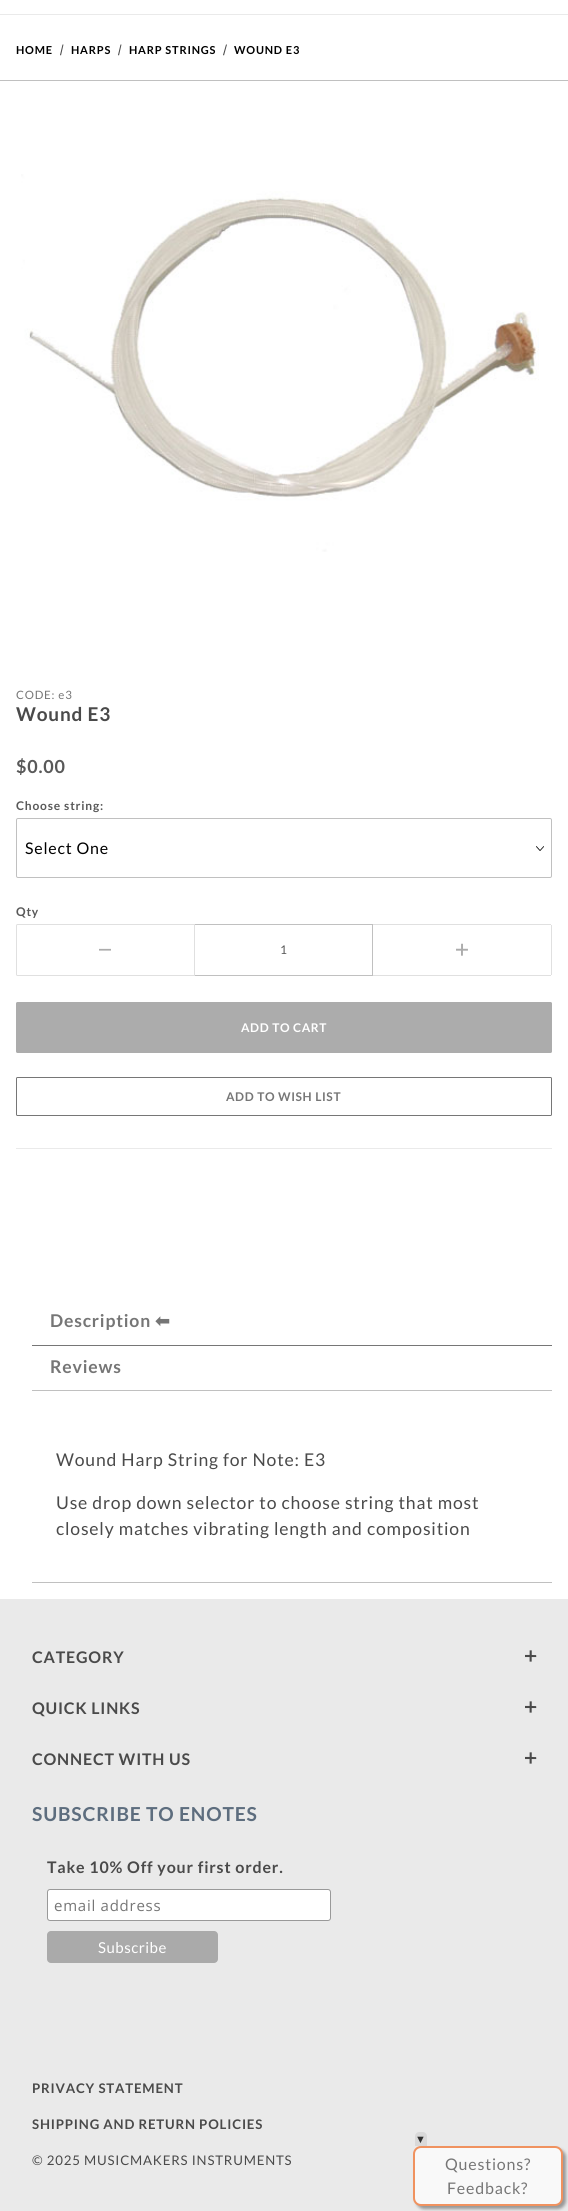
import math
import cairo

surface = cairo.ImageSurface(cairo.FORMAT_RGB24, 568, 2211)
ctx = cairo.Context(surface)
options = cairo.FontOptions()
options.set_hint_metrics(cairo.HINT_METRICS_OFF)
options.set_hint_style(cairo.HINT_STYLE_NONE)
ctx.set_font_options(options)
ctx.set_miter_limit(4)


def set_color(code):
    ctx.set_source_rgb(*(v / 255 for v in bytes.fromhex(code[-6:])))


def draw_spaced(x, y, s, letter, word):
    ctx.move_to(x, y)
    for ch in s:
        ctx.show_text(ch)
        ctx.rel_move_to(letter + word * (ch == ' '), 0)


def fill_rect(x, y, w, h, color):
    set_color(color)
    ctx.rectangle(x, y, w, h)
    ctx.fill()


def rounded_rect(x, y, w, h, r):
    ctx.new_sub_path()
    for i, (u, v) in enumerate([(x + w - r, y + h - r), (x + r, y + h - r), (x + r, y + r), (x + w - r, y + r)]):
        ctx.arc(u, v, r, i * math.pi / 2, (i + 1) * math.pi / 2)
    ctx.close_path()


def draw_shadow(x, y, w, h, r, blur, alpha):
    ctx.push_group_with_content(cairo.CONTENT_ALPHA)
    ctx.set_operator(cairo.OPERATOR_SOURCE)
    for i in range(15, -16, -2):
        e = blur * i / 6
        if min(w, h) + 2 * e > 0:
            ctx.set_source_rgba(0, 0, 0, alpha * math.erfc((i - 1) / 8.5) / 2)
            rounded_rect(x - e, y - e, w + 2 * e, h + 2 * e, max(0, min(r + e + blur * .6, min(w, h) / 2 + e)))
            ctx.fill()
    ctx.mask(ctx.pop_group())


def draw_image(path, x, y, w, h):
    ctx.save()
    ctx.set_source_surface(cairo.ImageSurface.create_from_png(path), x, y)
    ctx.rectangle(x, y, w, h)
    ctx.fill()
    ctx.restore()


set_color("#ffffff")
ctx.paint()
fill_rect(0, 14, 568, 1, "#eaeaea")
fill_rect(0, 80, 568, 1, "#c0c0c0")
ctx.select_font_face("Lato", cairo.FONT_SLANT_NORMAL, cairo.FONT_WEIGHT_BOLD)
ctx.set_font_size(11)
set_color("#000000")
draw_spaced(16, 54, "HOME", 0.8, 0)
draw_spaced(71, 54, "HARPS", 0.8, 0)
set_color("#4a4a4a")
ctx.new_path()
ctx.move_to(62.5, 44.5)
ctx.line_to(63.5, 44.5)
ctx.line_to(61, 55.5)
ctx.line_to(60, 55)
ctx.close_path()
ctx.move_to(120.5, 44.5)
ctx.line_to(121.5, 44.5)
ctx.line_to(119, 55.5)
ctx.line_to(118, 55)
ctx.close_path()
ctx.fill()
set_color("#000000")
draw_spaced(129, 54, "HARP STRINGS", 0.8, 0)
set_color("#4a4a4a")
ctx.new_path()
ctx.move_to(226, 44.5)
ctx.line_to(227, 44.5)
ctx.line_to(224, 55.5)
ctx.line_to(223, 55)
ctx.close_path()
ctx.fill()
set_color("#000000")
draw_spaced(234, 54, "WOUND E3", 0.8, 0)
draw_image("assets/img1.png", 21, 174, 518, 378)
ctx.select_font_face("Lato")
ctx.set_font_size(11.5)
set_color("#767676")
draw_spaced(16, 699, "CODE: e3", 0.8, 0)
ctx.select_font_face("Lato", cairo.FONT_SLANT_NORMAL, cairo.FONT_WEIGHT_BOLD)
ctx.set_font_size(19)
set_color("#4a4a4a")
draw_spaced(16, 721, "Wound E3", 0.8, 0)
ctx.set_font_size(18)
set_color("#595959")
draw_spaced(16, 773, "$0.00", 0.8, 0)
ctx.set_font_size(12)
draw_spaced(16, 810, "Choose string:", 0.8, 0)
rounded_rect(16.5, 818.5, 535, 59, 1.5)
set_color("#c0c0c0")
ctx.set_line_width(1)
ctx.stroke()
ctx.select_font_face("Lato")
ctx.set_font_size(16)
set_color("#000000")
draw_spaced(25, 854, "Select One", 0.8, 0)
draw_image("assets/img2.png", 536, 846, 8, 5)
ctx.select_font_face("Lato", cairo.FONT_SLANT_NORMAL, cairo.FONT_WEIGHT_BOLD)
ctx.set_font_size(12)
set_color("#595959")
draw_spaced(16, 916, "Qty", 0.8, 0)
ctx.new_path()
ctx.move_to(17.5, 924.5)
ctx.line_to(194.5, 924.5)
ctx.line_to(194.5, 975.5)
ctx.line_to(17.5, 975.5)
ctx.curve_to(17, 975.5, 16.5, 975, 16.5, 974.5)
ctx.line_to(16.5, 925.5)
ctx.curve_to(16.5, 925, 17, 924.5, 17.5, 924.5)
ctx.close_path()
set_color("#e0e0e0")
ctx.stroke()
ctx.select_font_face("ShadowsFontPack")
set_color("#acacac")
draw_spaced(99, 955, "<", 0.6, 0)
fill_rect(195, 924, 178, 1, "#c0c0c0")
fill_rect(372, 924, 1, 52, "#c0c0c0")
fill_rect(195, 975, 178, 1, "#c0c0c0")
ctx.select_font_face("Lato")
set_color("#595959")
draw_spaced(280, 954, "1", 0.6, 0)
fill_rect(373, 924, 178, 1, "#e0e0e0")
fill_rect(551, 925, 1, 50, "#e0e0e0")
fill_rect(373, 975, 178, 1, "#e0e0e0")
ctx.select_font_face("ShadowsFontPack")
set_color("#acacac")
draw_spaced(456, 955, "=", 0.6, 0)
rounded_rect(16, 1002, 536, 51, 1.5)
ctx.fill()
ctx.select_font_face("Lato", cairo.FONT_SLANT_NORMAL, cairo.FONT_WEIGHT_BOLD)
set_color("#ffffff")
draw_spaced(241, 1032, "ADD TO CART", 0.6, 0)
rounded_rect(16.5, 1077.5, 535, 38, 1)
set_color("#767676")
ctx.stroke()
draw_spaced(226, 1101, "ADD TO WISH LIST", 0.6, 0)
fill_rect(16, 1148, 536, 1, "#eaeaea")
fill_rect(32, 1345, 520, 1, "#767676")
ctx.set_font_size(17.6)
draw_spaced(50, 1327, "Description", 0.8, 0)
ctx.select_font_face("DejaVu Sans", cairo.FONT_SLANT_NORMAL, cairo.FONT_WEIGHT_BOLD)
draw_spaced(155, 1327, "⬅", 0.8, 0)
fill_rect(32, 1390, 520, 1, "#c0c0c0")
ctx.select_font_face("Lato", cairo.FONT_SLANT_NORMAL, cairo.FONT_WEIGHT_BOLD)
set_color("#767676")
draw_spaced(50, 1373, "Reviews", 0.8, 0)
fill_rect(32, 1582, 520, 1, "#c0c0c0")
ctx.select_font_face("Lato")
set_color("#4a4a4a")
draw_spaced(56, 1466, "Wound Harp String for Note: E3", 0.8, 0)
draw_spaced(56, 1509, "Use drop down selector to choose string that most", 0.8, 0)
draw_spaced(56, 1535, "closely matches vibrating length and composition", 0.8, 0)
fill_rect(0, 1599, 568, 612, "#eaeaea")
ctx.select_font_face("Lato", cairo.FONT_SLANT_NORMAL, cairo.FONT_WEIGHT_BOLD)
ctx.set_font_size(16)
set_color("#4a4a4a")
draw_spaced(32, 1663, "CATEGORY", 0.8, 0)
ctx.select_font_face("ShadowsFontPack", cairo.FONT_SLANT_NORMAL, cairo.FONT_WEIGHT_BOLD)
ctx.set_font_size(11)
draw_spaced(525, 1661, "=", 0.8, 0)
ctx.select_font_face("Lato", cairo.FONT_SLANT_NORMAL, cairo.FONT_WEIGHT_BOLD)
ctx.set_font_size(16)
draw_spaced(32, 1714, "QUICK LINKS", 0.8, 0)
ctx.select_font_face("ShadowsFontPack", cairo.FONT_SLANT_NORMAL, cairo.FONT_WEIGHT_BOLD)
ctx.set_font_size(11)
draw_spaced(525, 1712, "=", 0.8, 0)
ctx.select_font_face("Lato", cairo.FONT_SLANT_NORMAL, cairo.FONT_WEIGHT_BOLD)
ctx.set_font_size(16)
draw_spaced(32, 1765, "CONNECT WITH US", 0.8, 0)
ctx.select_font_face("ShadowsFontPack", cairo.FONT_SLANT_NORMAL, cairo.FONT_WEIGHT_BOLD)
ctx.set_font_size(11)
draw_spaced(525, 1763, "=", 0.8, 0)
ctx.select_font_face("Lato", cairo.FONT_SLANT_NORMAL, cairo.FONT_WEIGHT_BOLD)
ctx.set_font_size(19.25)
set_color("#5d6d7e")
draw_spaced(32, 1821, "SUBSCRIBE TO ENOTES", 0.8, 0)
ctx.set_font_size(16)
set_color("#4a4a4a")
draw_spaced(47, 1873, "Take 10% Off your first order.", 0.8, 0)
set_color("#ffffff")
rounded_rect(47.5, 1889.5, 283, 31, 2.5)
ctx.fill_preserve()
set_color("#999999")
ctx.stroke()
ctx.select_font_face("Open Sans")
ctx.set_font_size(15)
set_color("#767676")
draw_spaced(54, 1911, "email address", 0.75, 0)
set_color("#aaaaaa")
rounded_rect(47, 1931, 171, 32, 4)
ctx.fill()
ctx.select_font_face("Lato")
set_color("#ffffff")
draw_spaced(98, 1953, "Subscribe", 0.5, 0)
ctx.select_font_face("Lato", cairo.FONT_SLANT_NORMAL, cairo.FONT_WEIGHT_BOLD)
ctx.set_font_size(13.25)
set_color("#4a4a4a")
draw_spaced(32, 2093, "PRIVACY STATEMENT", 0.8, 0)
draw_spaced(32, 2129, "SHIPPING AND RETURN POLICIES", 0.8, 0)
ctx.select_font_face("Lato")
draw_spaced(32, 2165, "© 2025 MUSICMAKERS INSTRUMENTS", 0.8, 0)
set_color("#d9d9d9")
ctx.new_path()
ctx.move_to(419, 2132)
ctx.line_to(423, 2132)
ctx.curve_to(425, 2132, 427, 2134, 427, 2136)
ctx.line_to(427, 2146)
ctx.line_to(415, 2146)
ctx.line_to(415, 2136)
ctx.curve_to(415, 2134, 417, 2132, 419, 2132)
ctx.close_path()
ctx.fill()
ctx.select_font_face("Liberation Sans")
ctx.set_font_size(11)
set_color("#2f2f2f")
draw_spaced(415, 2143, "▼", 0.8, 0)
set_color("#464646")
draw_shadow(416, 2149, 150, 60, 8, 1.5, 0.5)
set_color("#f9f9f9")
rounded_rect(414, 2147, 148, 58, 7)
ctx.fill_preserve()
set_color("#f0925f")
ctx.set_line_width(2)
ctx.stroke()
ctx.select_font_face("Lato")
ctx.set_font_size(16)
set_color("#767676")
draw_spaced(445, 2170, "Questions?", 0.8, 0)
draw_spaced(447, 2194, "Feedback?", 0.8, 0)
surface.write_to_png("output.png")
